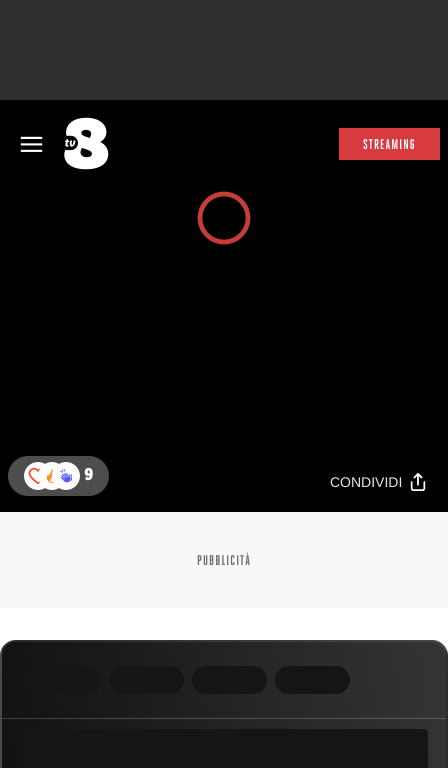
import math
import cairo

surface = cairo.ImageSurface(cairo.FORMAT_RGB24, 448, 768)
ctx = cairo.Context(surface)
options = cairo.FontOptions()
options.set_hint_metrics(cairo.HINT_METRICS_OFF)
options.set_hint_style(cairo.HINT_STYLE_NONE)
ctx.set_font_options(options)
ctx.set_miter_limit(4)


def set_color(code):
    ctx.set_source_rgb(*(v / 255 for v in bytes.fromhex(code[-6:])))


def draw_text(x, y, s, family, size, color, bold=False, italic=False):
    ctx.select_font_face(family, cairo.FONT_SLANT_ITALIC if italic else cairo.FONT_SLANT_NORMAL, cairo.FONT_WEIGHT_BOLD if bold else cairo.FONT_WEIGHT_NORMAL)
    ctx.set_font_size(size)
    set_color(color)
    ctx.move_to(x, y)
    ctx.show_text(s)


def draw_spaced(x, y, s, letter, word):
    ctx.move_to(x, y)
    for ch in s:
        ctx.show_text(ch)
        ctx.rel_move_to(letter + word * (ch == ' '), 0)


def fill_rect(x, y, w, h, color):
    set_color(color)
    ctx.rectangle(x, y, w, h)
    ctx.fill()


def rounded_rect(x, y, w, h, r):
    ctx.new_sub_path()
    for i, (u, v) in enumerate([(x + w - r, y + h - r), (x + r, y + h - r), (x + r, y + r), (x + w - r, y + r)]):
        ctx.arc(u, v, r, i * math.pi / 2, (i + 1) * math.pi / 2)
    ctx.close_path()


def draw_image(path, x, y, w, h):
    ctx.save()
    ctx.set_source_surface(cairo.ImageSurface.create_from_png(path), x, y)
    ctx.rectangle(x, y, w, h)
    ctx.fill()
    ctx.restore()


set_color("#2f2f2f")
ctx.paint()
fill_rect(0, 100, 448, 412, "#000000")
draw_image("assets/img1.png", 20, 136, 23, 16)
draw_image("assets/img2.png", 64, 117, 45, 53)
fill_rect(339, 128, 101, 32, "#d73a3f")
ctx.select_font_face("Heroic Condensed", cairo.FONT_SLANT_NORMAL, cairo.FONT_WEIGHT_BOLD)
ctx.set_font_size(14)
set_color("#ffffff")
draw_spaced(363, 149, "STREAMING", 1.1, 0)
fill_rect(0, 608, 448, 48, "#ffffff")
ctx.new_path()
ctx.arc(224, 218, 24, 0, 2 * math.pi)
set_color("#c73c37")
ctx.set_line_width(4.8)
ctx.stroke()
set_color("#4d4d4d")
rounded_rect(8, 456, 101, 40, 20)
ctx.fill()
set_color("#ffffff")
ctx.arc(38, 476, 14, 0, 2 * math.pi)
ctx.fill()
draw_image("assets/img3.png", 28, 467, 14, 17)
ctx.arc(52, 476, 14, 0, 2 * math.pi)
ctx.fill()
draw_image("assets/img4.png", 46, 469, 8, 14)
ctx.arc(66, 476, 14, 0, 2 * math.pi)
ctx.fill()
draw_image("assets/img5.png", 60, 469, 12, 14)
draw_text(84, 480, "9", "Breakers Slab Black", 18, "#ffffff")
draw_text(330, 487, "CONDIVIDI", "Liberation Sans", 14, "#e6e6e6")
draw_image("assets/img6.png", 410, 473, 16, 18)
fill_rect(0, 512, 448, 96, "#f8f8f8")
ctx.select_font_face("Heroic Condensed", cairo.FONT_SLANT_NORMAL, cairo.FONT_WEIGHT_BOLD)
set_color("#6c6c6c")
draw_spaced(197, 565, "PUBBLICITÀ", 1.1, 0)
set_color("#000000")
rounded_rect(0, 640, 448, 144, 16)
ctx.fill()
ctx.save()
rounded_rect(0, 640, 448, 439, 16)
ctx.clip()
gradient = cairo.LinearGradient(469, 394, -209, 478)
gradient.add_color_stop_rgba(0.03, 1, 1, 1, 0.2)
gradient.add_color_stop_rgba(1, 1, 1, 1, 0)
ctx.set_source(gradient)
ctx.rectangle(2, 640, 444, 2)
ctx.fill()
gradient = cairo.LinearGradient(25, 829, -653, 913)
gradient.add_color_stop_rgba(0.03, 1, 1, 1, 0.2)
gradient.add_color_stop_rgba(1, 1, 1, 1, 0)
ctx.set_source(gradient)
ctx.rectangle(0, 642, 2, 126)
ctx.fill()
gradient = cairo.LinearGradient(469, 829, -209, 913)
gradient.add_color_stop_rgba(0.03, 1, 1, 1, 0.2)
gradient.add_color_stop_rgba(1, 1, 1, 1, 0)
ctx.set_source(gradient)
ctx.rectangle(2, 642, 444, 126)
ctx.fill()
gradient = cairo.LinearGradient(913, 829, 235, 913)
gradient.add_color_stop_rgba(0.03, 1, 1, 1, 0.2)
gradient.add_color_stop_rgba(1, 1, 1, 1, 0)
ctx.set_source(gradient)
ctx.rectangle(446, 642, 2, 126)
ctx.fill()
ctx.restore()
rounded_rect(1, 641, 446, 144, 15)
ctx.set_source_rgba(1, 1, 1, 0.11)
ctx.set_line_width(2)
ctx.stroke()
set_color("#151515")
rounded_rect(26, 666, 75, 28, 14)
ctx.fill()
rounded_rect(109, 666, 75, 28, 14)
ctx.fill()
rounded_rect(192, 666, 75, 28, 14)
ctx.fill()
rounded_rect(275, 666, 75, 28, 14)
ctx.fill()
ctx.set_source_rgba(1, 1, 1, 0.2)
ctx.rectangle(2, 718, 444, 1)
ctx.fill()
set_color("#151515")
rounded_rect(20, 729, 408, 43, 4)
ctx.fill()
surface.write_to_png("output.png")
